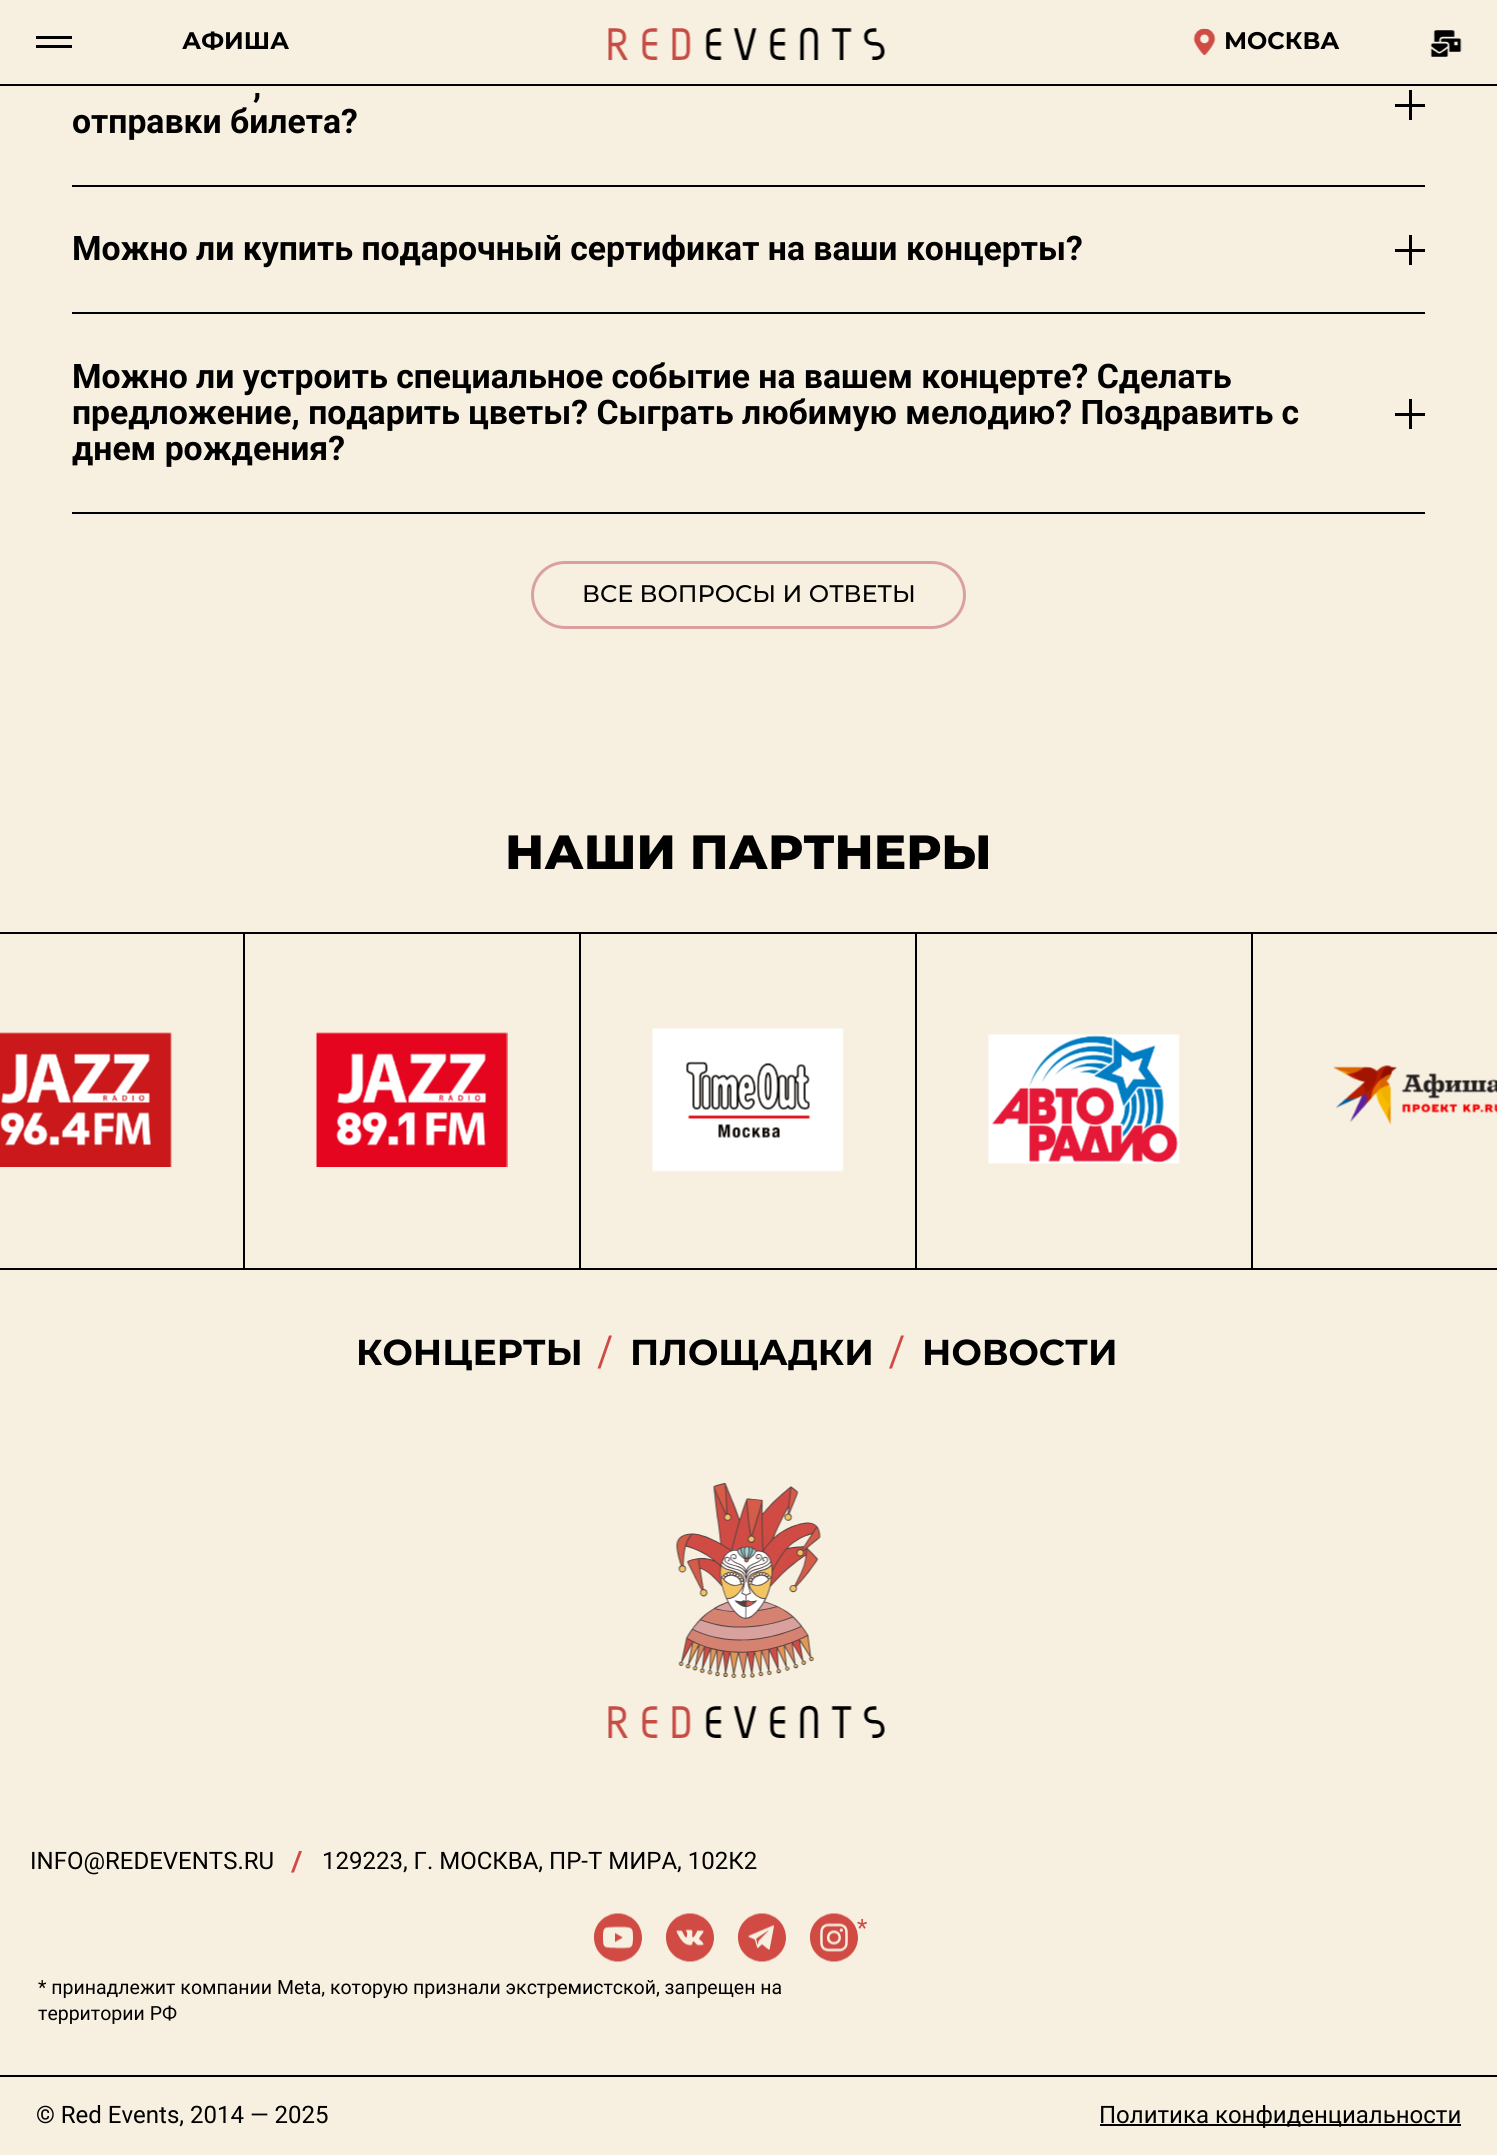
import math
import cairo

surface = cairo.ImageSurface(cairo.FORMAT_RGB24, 1497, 2155)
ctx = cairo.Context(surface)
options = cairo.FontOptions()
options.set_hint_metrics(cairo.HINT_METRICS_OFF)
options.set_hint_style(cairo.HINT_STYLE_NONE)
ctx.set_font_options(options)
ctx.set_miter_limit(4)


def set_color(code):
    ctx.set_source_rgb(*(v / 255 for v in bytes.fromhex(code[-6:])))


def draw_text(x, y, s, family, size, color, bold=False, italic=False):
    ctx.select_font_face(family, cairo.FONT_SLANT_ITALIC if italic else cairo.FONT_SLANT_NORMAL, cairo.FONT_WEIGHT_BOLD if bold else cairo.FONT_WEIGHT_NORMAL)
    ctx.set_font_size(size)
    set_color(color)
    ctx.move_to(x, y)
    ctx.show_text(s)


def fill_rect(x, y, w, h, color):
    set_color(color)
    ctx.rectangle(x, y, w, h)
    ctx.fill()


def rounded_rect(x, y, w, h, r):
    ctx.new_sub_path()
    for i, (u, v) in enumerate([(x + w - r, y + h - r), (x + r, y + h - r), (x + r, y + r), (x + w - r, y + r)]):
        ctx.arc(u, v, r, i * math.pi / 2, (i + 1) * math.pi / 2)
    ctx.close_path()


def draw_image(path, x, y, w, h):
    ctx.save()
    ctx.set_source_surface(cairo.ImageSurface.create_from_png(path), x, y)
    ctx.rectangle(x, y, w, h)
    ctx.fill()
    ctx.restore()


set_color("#f7f0e0")
ctx.paint()
fill_rect(0, 84, 1497, 2, "#000000")
fill_rect(36, 36, 36, 3, "#000000")
fill_rect(36, 45, 36, 3, "#000000")
draw_text(182, 49, "АФИША", "Montserrat", 24, "#000000", bold=True)
draw_image("assets/img1.png", 608, 27, 277, 33)
draw_image("assets/img2.png", 1193, 28, 23, 28)
draw_text(1224, 49, "МОСКВА", "Montserrat", 24, "#000000", bold=True)
draw_image("assets/img3.png", 1430, 30, 32, 27)
draw_text(253, 97, ",", "Roboto", 33.75, "#000000", bold=True)
fill_rect(1409, 90, 3, 30, "#000000")
fill_rect(1395, 104, 30, 3, "#000000")
draw_text(72, 133, "отправки билета?", "Roboto", 33.75, "#000000", bold=True)
fill_rect(72, 185, 1353, 2, "#000000")
draw_text(72, 260, "Можно ли купить подарочный сертификат на ваши концерты?", "Roboto", 33.75, "#000000", bold=True)
fill_rect(1409, 235, 3, 30, "#000000")
fill_rect(1395, 249, 30, 3, "#000000")
fill_rect(72, 312, 1353, 2, "#000000")
fill_rect(72, 512, 1353, 2, "#000000")
draw_text(72, 388, "Можно ли устроить специальное событие на вашем концерте? Сделать", "Roboto", 33.75, "#000000", bold=True)
draw_text(72, 424, "предложение, подарить цветы? Сыграть любимую мелодию? Поздравить с", "Roboto", 33.75, "#000000", bold=True)
fill_rect(1409, 399, 3, 30, "#000000")
fill_rect(1395, 413, 30, 3, "#000000")
draw_text(72, 460, "днем рождения?", "Roboto", 33.75, "#000000", bold=True)
rounded_rect(532.5, 562.5, 432, 65, 32.5)
set_color("#d9a19e")
ctx.set_line_width(3)
ctx.stroke()
draw_text(582, 602, "ВСЕ ВОПРОСЫ И ОТВЕТЫ", "Montserrat Medium", 24, "#000000")
draw_text(505, 869, "НАШИ ПАРТНЕРЫ", "Montserrat ExtraBold", 48, "#000000")
fill_rect(0, 932, 1497, 2, "#000000")
fill_rect(243, 932, 2, 336, "#000000")
draw_image("assets/img4.png", 0, 1032, 172, 135)
fill_rect(579, 932, 2, 336, "#000000")
draw_image("assets/img5.png", 316, 1032, 192, 135)
fill_rect(915, 932, 2, 336, "#000000")
draw_image("assets/img6.png", 652, 1028, 192, 144)
fill_rect(1251, 932, 2, 336, "#000000")
draw_image("assets/img7.png", 988, 1034, 192, 130)
draw_image("assets/img8.png", 1333, 1065, 164, 60)
fill_rect(0, 1268, 1497, 2, "#000000")
draw_text(356, 1365, "КОНЦЕРТЫ", "Montserrat", 36, "#000000", bold=True)
set_color("#d04b44")
ctx.new_path()
ctx.move_to(609, 1335.5)
ctx.line_to(612, 1335.5)
ctx.line_to(600.5, 1368.5)
ctx.line_to(597.5, 1368.5)
ctx.close_path()
ctx.fill()
draw_text(630, 1365, "ПЛОЩАДКИ", "Montserrat", 36, "#000000", bold=True)
set_color("#d04b44")
ctx.new_path()
ctx.move_to(901, 1335.5)
ctx.line_to(904, 1335.5)
ctx.line_to(892, 1368.5)
ctx.line_to(889, 1368.5)
ctx.close_path()
ctx.fill()
draw_text(922, 1365, "НОВОСТИ", "Montserrat", 36, "#000000", bold=True)
draw_image("assets/img9.png", 676, 1483, 145, 195)
draw_image("assets/img1.png", 608, 1705, 277, 33)
draw_text(30, 1869, "INFO@REDEVENTS.RU", "Roboto", 24, "#000000")
set_color("#d04b44")
ctx.new_path()
ctx.move_to(299, 1851)
ctx.line_to(302, 1851)
ctx.line_to(294, 1872.5)
ctx.line_to(291, 1872.5)
ctx.close_path()
ctx.fill()
draw_text(322, 1869, "129223, Г. МОСКВА, ПР-Т МИРА, 102К2", "Roboto", 24, "#000000")
draw_image("assets/img10.png", 594, 1913, 48, 49)
draw_image("assets/img11.png", 666, 1913, 48, 49)
draw_image("assets/img12.png", 738, 1913, 48, 49)
draw_image("assets/img13.png", 810, 1913, 48, 49)
draw_text(857, 1936, "*", "Roboto", 24, "#d04b44")
draw_text(38, 1994, "* принадлежит компании Meta, которую признали экстремистской, запрещен на", "Roboto", 19.5, "#000000")
draw_text(38, 2020, "территории РФ", "Roboto", 19.5, "#000000")
fill_rect(0, 2075, 1497, 2, "#000000")
draw_text(36, 2123, "© Red Events, 2014 — 2025", "Roboto", 24, "#000000")
fill_rect(1100, 2124, 361, 2, "#000000")
draw_text(1099, 2123, "Политика конфиденциальности", "Roboto", 24, "#000000")
surface.write_to_png("output.png")
